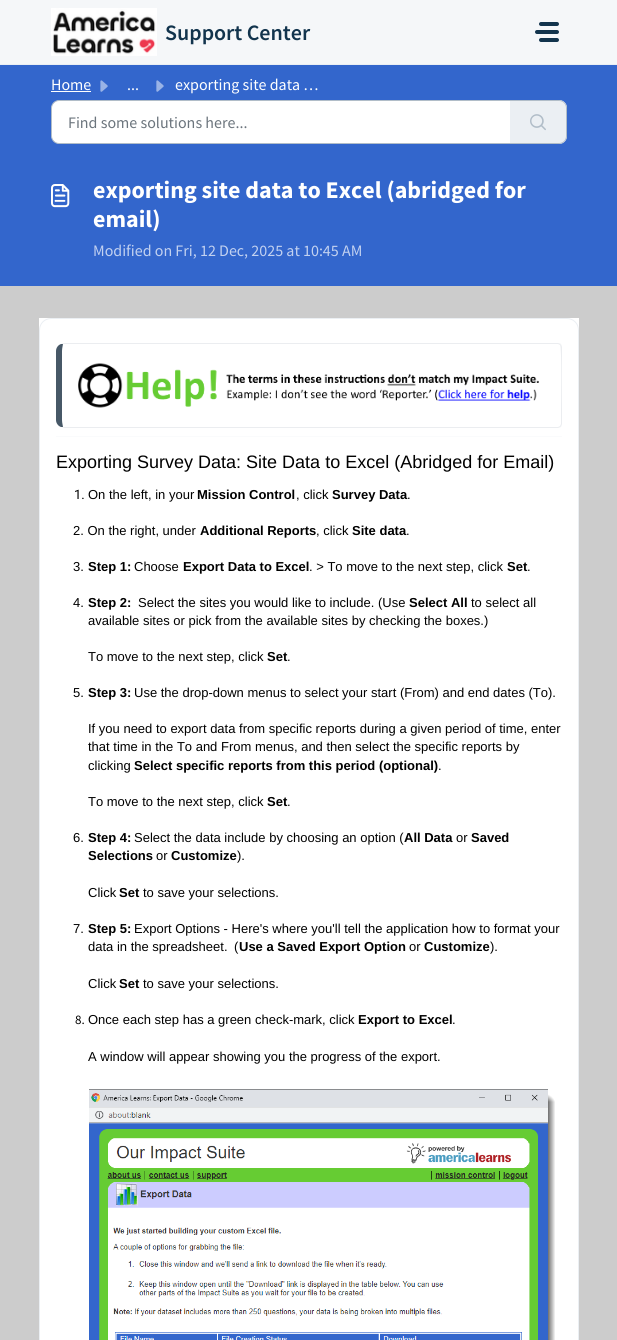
import math
import cairo

surface = cairo.ImageSurface(cairo.FORMAT_RGB24, 617, 1340)
ctx = cairo.Context(surface)
options = cairo.FontOptions()
options.set_hint_metrics(cairo.HINT_METRICS_OFF)
options.set_hint_style(cairo.HINT_STYLE_NONE)
ctx.set_font_options(options)
ctx.set_miter_limit(4)


def set_color(code):
    ctx.set_source_rgb(*(v / 255 for v in bytes.fromhex(code[-6:])))


def draw_text(x, y, s, family, size, color, bold=False, italic=False):
    ctx.select_font_face(family, cairo.FONT_SLANT_ITALIC if italic else cairo.FONT_SLANT_NORMAL, cairo.FONT_WEIGHT_BOLD if bold else cairo.FONT_WEIGHT_NORMAL)
    ctx.set_font_size(size)
    set_color(color)
    ctx.move_to(x, y)
    ctx.show_text(s)


def fill_rect(x, y, w, h, color):
    set_color(color)
    ctx.rectangle(x, y, w, h)
    ctx.fill()


def rounded_rect(x, y, w, h, r):
    ctx.new_sub_path()
    for i, (u, v) in enumerate([(x + w - r, y + h - r), (x + r, y + h - r), (x + r, y + r), (x + w - r, y + r)]):
        ctx.arc(u, v, r, i * math.pi / 2, (i + 1) * math.pi / 2)
    ctx.close_path()


def draw_image(path, x, y, w, h):
    ctx.save()
    ctx.set_source_surface(cairo.ImageSurface.create_from_png(path), x, y)
    ctx.rectangle(x, y, w, h)
    ctx.fill()
    ctx.restore()


set_color("#cccccc")
ctx.paint()
fill_rect(0, 0, 617, 64, "#f5f7f9")
fill_rect(0, 64, 617, 1, "#ebeff3")
draw_image("assets/img1.png", 51, 8, 106, 48)
draw_text(165, 40, "Support Center", "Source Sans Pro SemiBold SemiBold", 22, "#12344d")
rounded_rect(539, 22, 20, 4, 2)
ctx.fill()
rounded_rect(535, 30, 24, 4, 2)
ctx.fill()
rounded_rect(539, 38, 20, 4, 2)
ctx.fill()
fill_rect(0, 65, 617, 221, "#3366cc")
draw_text(51, 90, "Home", "Source Sans Pro", 16, "#ffffff")
fill_rect(51, 91, 40, 1, "#ffffff")
draw_image("assets/img2.png", 100, 80, 8, 12)
draw_text(127, 90, "...", "Source Sans Pro", 16, "#ffffff")
draw_image("assets/img3.png", 156, 80, 8, 12)
draw_text(175, 90, "exporting site data …", "Source Sans Pro", 16, "#ffffff")
ctx.new_path()
ctx.move_to(59, 100.5)
ctx.line_to(510.5, 100.5)
ctx.line_to(510.5, 143.5)
ctx.line_to(59, 143.5)
ctx.curve_to(55, 143.5, 51.5, 140, 51.5, 136)
ctx.line_to(51.5, 108)
ctx.curve_to(51.5, 104, 55, 100.5, 59, 100.5)
ctx.close_path()
ctx.fill_preserve()
set_color("#b1bdc8")
ctx.set_line_width(1)
ctx.stroke()
draw_text(68, 128, "Find some solutions here...", "Source Sans Pro", 16, "#6c757d")
set_color("#ebeff3")
ctx.new_path()
ctx.move_to(510, 100)
ctx.line_to(559, 100)
ctx.curve_to(563.5, 100, 567, 103.5, 567, 108)
ctx.line_to(567, 136)
ctx.curve_to(567, 140.5, 563.5, 144, 559, 144)
ctx.line_to(510, 144)
ctx.close_path()
ctx.fill()
set_color("#b1bdc8")
ctx.set_fill_rule(cairo.FILL_RULE_EVEN_ODD)
ctx.new_path()
ctx.move_to(510, 100)
ctx.line_to(559, 100)
ctx.curve_to(563, 100, 567, 104, 567, 108)
ctx.line_to(567, 136)
ctx.curve_to(567, 140, 563, 144, 559, 144)
ctx.line_to(510, 144)
ctx.close_path()
ctx.move_to(510, 101)
ctx.line_to(559, 101)
ctx.curve_to(563, 101, 566, 104, 566, 108)
ctx.line_to(566, 136)
ctx.curve_to(566, 140, 563, 143, 559, 143)
ctx.line_to(510, 143)
ctx.close_path()
ctx.fill()
draw_image("assets/img4.png", 530, 114, 16, 17)
draw_image("assets/img5.png", 51, 184, 19, 24)
draw_text(93, 198, "exporting site data to Excel (abridged for", "Source Sans Pro", 24, "#ffffff", bold=True)
draw_text(93, 227, "email)", "Source Sans Pro", 24, "#ffffff", bold=True)
draw_text(93, 256, "Modified on Fri, 12 Dec, 2025 at 10:45 AM", "Source Sans Pro", 16, "#c2d1f0")
fill_rect(39, 318, 540, 1022, "#ffffff")
rounded_rect(39.5, 318.5, 539, 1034, 11.5)
set_color("#ebeff3")
ctx.stroke()
set_color("#ebedf0")
ctx.set_fill_rule(cairo.FILL_RULE_WINDING)
ctx.new_path()
ctx.move_to(64, 343)
ctx.line_to(61, 344)
ctx.line_to(63, 344)
ctx.line_to(558, 344)
ctx.line_to(560, 345)
ctx.line_to(561, 344)
ctx.line_to(558, 343)
ctx.close_path()
ctx.fill()
ctx.new_path()
ctx.move_to(562, 424)
ctx.line_to(562, 347)
ctx.line_to(561, 344)
ctx.line_to(560, 345)
ctx.curve_to(562, 347, 561, 404, 561, 411)
ctx.line_to(561, 424)
ctx.line_to(560, 426)
ctx.line_to(561, 427)
ctx.close_path()
ctx.fill()
ctx.new_path()
ctx.move_to(64, 428)
ctx.line_to(558, 428)
ctx.line_to(561, 427)
ctx.line_to(560, 426)
ctx.line_to(558, 427)
ctx.line_to(63, 427)
ctx.line_to(61, 427)
ctx.close_path()
ctx.fill()
set_color("#475867")
ctx.new_path()
ctx.move_to(56, 351)
ctx.line_to(56, 420)
ctx.curve_to(56, 423, 58, 426, 61, 427)
ctx.line_to(63, 427)
ctx.curve_to(63, 426, 62, 423, 62, 420)
ctx.line_to(62, 351)
ctx.curve_to(62, 348, 63, 345, 63, 344)
ctx.line_to(61, 344)
ctx.curve_to(58, 345, 56, 348, 56, 351)
ctx.close_path()
ctx.fill()
draw_image("assets/img6.png", 78, 363, 461, 45)
fill_rect(56, 436, 506, 1, "#fafbfc")
draw_text(56, 468, "Exporting Survey Data: Site Data to Excel (Abridged for Email)", "Liberation Sans", 18, "#000000")
draw_text(74, 499, "1.", "Roboto", 13, "#000000")
draw_text(88, 499, "On the left, in your", "Liberation Sans", 13, "#000000")
draw_text(197, 499, "Mission Control", "Liberation Sans", 13, "#000000", bold=True)
draw_text(296, 499, ", click", "Liberation Sans", 13, "#000000")
draw_text(332, 499, "Survey Data", "Liberation Sans", 13, "#000000", bold=True)
draw_text(407, 499, ".", "Liberation Sans", 13, "#000000")
draw_text(73, 535, "2. On the right, under", "Liberation Sans", 13, "#000000")
draw_text(200, 535, "Additional Reports", "Liberation Sans", 13, "#000000", bold=True)
draw_text(316, 535, ", click", "Liberation Sans", 13, "#000000")
draw_text(352, 535, "Site data", "Liberation Sans", 13, "#000000", bold=True)
draw_text(406, 535, ".", "Liberation Sans", 13, "#000000")
draw_text(73, 571, "3.", "Liberation Sans", 13, "#000000")
draw_text(88, 571, "Step 1:", "Liberation Sans", 13, "#000000", bold=True)
draw_text(134, 571, "Choose", "Liberation Sans", 13, "#000000")
draw_text(183, 571, "Export Data to Excel", "Liberation Sans", 13, "#000000", bold=True)
draw_text(309, 571, ". > To move to the next step, click", "Liberation Sans", 13, "#000000")
draw_text(507, 571, "Set", "Liberation Sans", 13, "#000000", bold=True)
draw_text(527, 571, ".", "Liberation Sans", 13, "#000000")
draw_text(73, 607, "4.", "Liberation Sans", 13, "#000000")
draw_text(88, 607, "Step 2:", "Liberation Sans", 13, "#000000", bold=True)
draw_text(138, 607, "Select the sites you would like to include. (Use", "Liberation Sans", 13, "#000000")
draw_text(409, 607, "Select All", "Liberation Sans", 13, "#000000", bold=True)
draw_text(471, 607, "to select all", "Liberation Sans", 13, "#000000")
draw_text(88, 625, "available sites or pick from the available sites by checking the boxes.)", "Liberation Sans", 13, "#000000")
draw_text(88, 661, "To move to the next step, click", "Liberation Sans", 13, "#000000")
draw_text(267, 661, "Set", "Liberation Sans", 13, "#000000", bold=True)
draw_text(287, 661, ".", "Liberation Sans", 13, "#000000")
draw_text(73, 697, "5.", "Liberation Sans", 13, "#000000")
draw_text(88, 697, "Step 3:", "Liberation Sans", 13, "#000000", bold=True)
draw_text(134, 697, "Use the drop-down menus to select your start (From) and end dates (To).", "Liberation Sans", 13, "#000000")
draw_text(88, 733, "If you need to export data from specific reports during a given period of time, enter", "Liberation Sans", 13, "#000000")
draw_text(88, 751, "that time in the To and From menus, and then select the specific reports by", "Liberation Sans", 13, "#000000")
draw_text(88, 770, "clicking", "Liberation Sans", 13, "#000000")
draw_text(134, 770, "Select specific reports from this period (optional)", "Liberation Sans", 13, "#000000", bold=True)
draw_text(438, 770, ".", "Liberation Sans", 13, "#000000")
draw_text(88, 806, "To move to the next step, click", "Liberation Sans", 13, "#000000")
draw_text(267, 806, "Set", "Liberation Sans", 13, "#000000", bold=True)
draw_text(287, 806, ".", "Liberation Sans", 13, "#000000")
draw_text(73, 842, "6.", "Liberation Sans", 13, "#000000")
draw_text(88, 842, "Step 4:", "Liberation Sans", 13, "#000000", bold=True)
draw_text(134, 842, "Select the data include by choosing an option (", "Liberation Sans", 13, "#000000")
draw_text(404, 842, "All Data", "Liberation Sans", 13, "#000000", bold=True)
draw_text(456, 842, "or", "Liberation Sans", 13, "#000000")
draw_text(471, 842, "Saved", "Liberation Sans", 13, "#000000", bold=True)
draw_text(88, 860, "Selections", "Liberation Sans", 13, "#000000", bold=True)
draw_text(156, 860, "or", "Liberation Sans", 13, "#000000")
draw_text(171, 860, "Customize", "Liberation Sans", 13, "#000000", bold=True)
draw_text(237, 860, ").", "Liberation Sans", 13, "#000000")
draw_text(88, 897, "Click", "Liberation Sans", 13, "#000000")
draw_text(119, 897, "Set", "Liberation Sans", 13, "#000000", bold=True)
draw_text(143, 897, "to save your selections.", "Liberation Sans", 13, "#000000")
draw_text(73, 933, "7.", "Liberation Sans", 13, "#000000")
draw_text(88, 933, "Step 5:", "Liberation Sans", 13, "#000000", bold=True)
draw_text(134, 933, "Export Options - Here's where you'll tell the application how to format your", "Liberation Sans", 13, "#000000")
draw_text(88, 951, "data in the spreadsheet.", "Liberation Sans", 13, "#000000")
draw_text(234, 951, "(", "Liberation Sans", 13, "#000000")
draw_text(239, 951, "Use a Saved Export Option", "Liberation Sans", 13, "#000000", bold=True)
draw_text(409, 951, "or", "Liberation Sans", 13, "#000000")
draw_text(424, 951, "Customize", "Liberation Sans", 13, "#000000", bold=True)
draw_text(490, 951, ").", "Liberation Sans", 13, "#000000")
draw_text(88, 988, "Click", "Liberation Sans", 13, "#000000")
draw_text(119, 988, "Set", "Liberation Sans", 13, "#000000", bold=True)
draw_text(143, 988, "to save your selections.", "Liberation Sans", 13, "#000000")
draw_text(75, 1024, "8.", "Source Sans Pro", 13, "#000000")
draw_text(88, 1024, "Once each step has a green check-mark, click", "Liberation Sans", 13, "#000000")
draw_text(358, 1024, "Export to Excel", "Liberation Sans", 13, "#000000", bold=True)
draw_text(452, 1024, ".", "Liberation Sans", 13, "#000000")
draw_text(88, 1061, "A window will appear showing you the progress of the export.", "Liberation Sans", 13, "#000000")
draw_image("assets/img7.png", 89, 1089, 466, 251)
surface.write_to_png("output.png")
